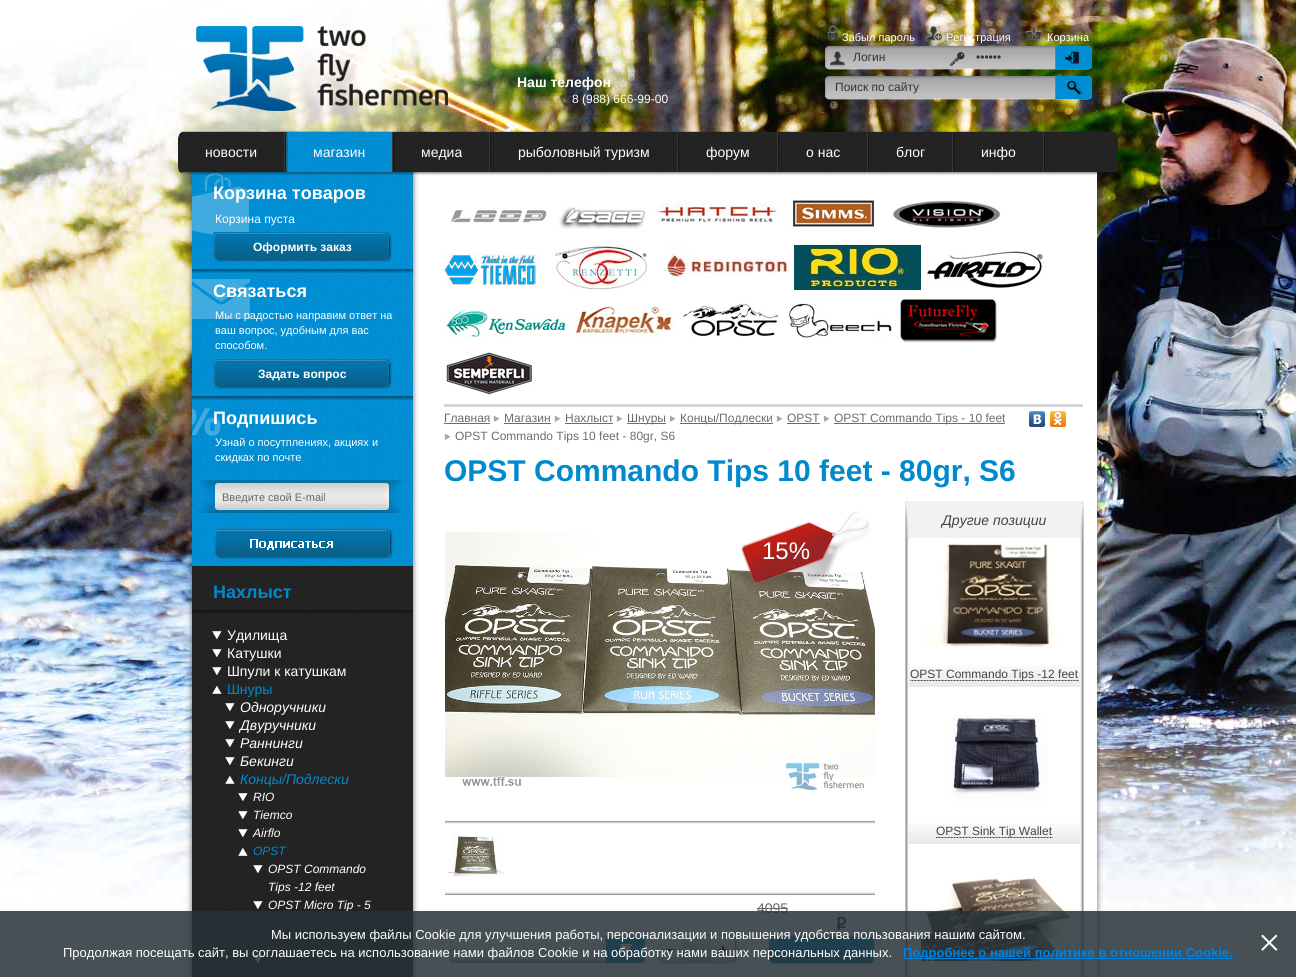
import math
import cairo

surface = cairo.ImageSurface(cairo.FORMAT_RGB24, 1296, 977)
ctx = cairo.Context(surface)
options = cairo.FontOptions()
options.set_hint_metrics(cairo.HINT_METRICS_OFF)
options.set_hint_style(cairo.HINT_STYLE_NONE)
ctx.set_font_options(options)
ctx.set_miter_limit(4)


def set_color(code):
    ctx.set_source_rgb(*(v / 255 for v in bytes.fromhex(code[-6:])))


def draw_text(x, y, s, family, size, color, bold=False, italic=False):
    ctx.select_font_face(family, cairo.FONT_SLANT_ITALIC if italic else cairo.FONT_SLANT_NORMAL, cairo.FONT_WEIGHT_BOLD if bold else cairo.FONT_WEIGHT_NORMAL)
    ctx.set_font_size(size)
    set_color(color)
    ctx.move_to(x, y)
    ctx.show_text(s)


def fill_rect(x, y, w, h, color):
    set_color(color)
    ctx.rectangle(x, y, w, h)
    ctx.fill()


def rounded_rect(x, y, w, h, r):
    ctx.new_sub_path()
    for i, (u, v) in enumerate([(x + w - r, y + h - r), (x + r, y + h - r), (x + r, y + r), (x + w - r, y + r)]):
        ctx.arc(u, v, r, i * math.pi / 2, (i + 1) * math.pi / 2)
    ctx.close_path()


def draw_shadow(x, y, w, h, r, blur, alpha):
    ctx.push_group_with_content(cairo.CONTENT_ALPHA)
    ctx.set_operator(cairo.OPERATOR_SOURCE)
    for i in range(15, -16, -2):
        e = blur * i / 6
        if min(w, h) + 2 * e > 0:
            ctx.set_source_rgba(0, 0, 0, alpha * math.erfc((i - 1) / 8.5) / 2)
            rounded_rect(x - e, y - e, w + 2 * e, h + 2 * e, max(0, min(r + e + blur * .6, min(w, h) / 2 + e)))
            ctx.fill()
    ctx.mask(ctx.pop_group())


def draw_image(path, x, y, w, h):
    ctx.save()
    ctx.set_source_surface(cairo.ImageSurface.create_from_png(path), x, y)
    ctx.rectangle(x, y, w, h)
    ctx.fill()
    ctx.restore()


set_color("#ffffff")
ctx.paint()
draw_image("assets/img1.png", 0, 0, 1296, 920)
draw_image("assets/img2.png", 196, 26, 252, 85)
draw_text(517, 87, "Наш телефон", "Liberation Sans", 14, "#ffffff", bold=True)
draw_image("assets/img3.png", 819, 20, 5, 93)
draw_image("assets/img4.png", 827, 25, 12, 16)
draw_text(842, 41, "Забыл пароль", "Liberation Sans", 11, "#ffffff")
draw_image("assets/img5.png", 925, 25, 18, 17)
draw_text(946, 41, "Регистрация", "Liberation Sans", 11, "#ffffff")
draw_image("assets/img6.png", 1025, 25, 18, 16)
draw_text(1047, 41, "Корзина", "Liberation Sans", 11, "#ffffff")
draw_image("assets/img7.png", 825, 46, 267, 24)
draw_text(853, 61, "Логин", "Liberation Sans", 12, "#333333")
draw_text(976, 61, "••••••", "Liberation Sans", 12, "#333333")
draw_image("assets/img8.png", 825, 76, 267, 24)
draw_text(835, 91, "Поиск по сайту", "Liberation Sans", 12, "#333333")
draw_image("assets/img9.png", 1093, 20, 5, 93)
draw_image("assets/img10.png", 560, 94, 9, 12)
draw_text(572, 103, "8 (988) 666-99-00", "Liberation Sans", 12, "#ffffff")
set_color("#323232")
draw_shadow(393, 164, 704, 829, 7, 3, 0.75)
fill_rect(413, 172, 684, 805, "#ffffff")
set_color("#323232")
draw_shadow(192, 164, 221, 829, 7, 3, 0.75)
draw_image("assets/img19.png", 192, 172, 221, 394)
draw_image("assets/img20.png", 192, 172, 58, 70)
draw_image("assets/img11.png", 178, 131, 940, 44)
draw_image("assets/img12.png", 284, 132, 2, 40)
draw_text(205, 157, "новости", "Liberation Sans", 14, "#ffffff")
draw_image("assets/img13.png", 392, 132, 2, 40)
draw_image("assets/img14.png", 286, 132, 106, 40)
draw_text(313, 157, "магазин", "Liberation Sans", 14, "#ffffff")
draw_image("assets/img15.png", 489, 132, 2, 40)
draw_text(421, 157, "медиа", "Liberation Sans", 14, "#ffffff")
draw_image("assets/img16.png", 677, 132, 2, 40)
draw_text(518, 157, "рыболовный туризм", "Liberation Sans", 14, "#ffffff")
draw_image("assets/img17.png", 777, 132, 2, 40)
draw_text(706, 157, "форум", "Liberation Sans", 14, "#ffffff")
draw_image("assets/img15.png", 867, 132, 2, 40)
draw_text(806, 157, "о нас", "Liberation Sans", 14, "#ffffff")
draw_image("assets/img13.png", 952, 132, 2, 40)
draw_text(896, 157, "блог", "Liberation Sans", 14, "#ffffff")
draw_image("assets/img17.png", 1043, 132, 2, 40)
draw_text(981, 157, "инфо", "Liberation Sans", 14, "#ffffff")
draw_image("assets/img18.png", 192, 566, 221, 411)
draw_text(213, 199, "Корзина товаров", "Liberation Sans", 18, "#ffffff", bold=True)
draw_text(215, 223, "Корзина пуста", "Liberation Sans", 12, "#ffffff")
draw_image("assets/img21.png", 213, 232, 179, 30)
draw_text(253, 251, "Оформить заказ", "Liberation Sans", 12, "#ffffff", bold=True)
draw_image("assets/img22.png", 192, 269, 221, 5)
draw_image("assets/img23.png", 192, 274, 58, 45)
draw_text(213, 297, "Cвязаться", "Liberation Sans", 18, "#ffffff", bold=True)
draw_text(215, 319, "Мы с радостью направим ответ на", "Liberation Sans", 11, "#ffffff")
draw_text(215, 334, "ваш вопрос, удобным для вас", "Liberation Sans", 11, "#ffffff")
draw_text(215, 349, "способом.", "Liberation Sans", 11, "#ffffff")
draw_image("assets/img21.png", 213, 359, 179, 30)
draw_text(258, 378, "Задать вопрос", "Liberation Sans", 12, "#ffffff", bold=True)
draw_image("assets/img22.png", 192, 396, 221, 5)
draw_image("assets/img24.png", 192, 401, 31, 41)
draw_text(213, 424, "Подпишись", "Liberation Sans", 18, "#ffffff", bold=True)
draw_text(215, 446, "Узнай о посутплениях, акциях и", "Liberation Sans", 11, "#ffffff")
draw_text(215, 461, "скидках по почте", "Liberation Sans", 11, "#ffffff")
draw_image("assets/img25.png", 199, 480, 209, 33)
ctx.save()
ctx.rectangle(222, 491, 163, 12)
ctx.clip()
draw_text(222, 501, "Введите свой E-mail", "Liberation Sans", 11, "#666666")
ctx.restore()
draw_image("assets/img26.png", 213, 526, 183, 35)
draw_image("assets/img27.png", 192, 610, 221, 4)
draw_text(213, 598, "Нахлыст", "Liberation Sans", 18, "#0089cd", bold=True)
draw_image("assets/img28.png", 212, 631, 10, 9)
draw_text(227, 640, "Удилища", "Liberation Sans", 14, "#ffffff")
draw_image("assets/img29.png", 212, 649, 10, 9)
draw_text(227, 658, "Катушки", "Liberation Sans", 14, "#ffffff")
draw_image("assets/img30.png", 212, 667, 10, 9)
draw_text(227, 676, "Шпули к катушкам", "Liberation Sans", 14, "#ffffff")
draw_image("assets/img31.png", 212, 685, 10, 9)
draw_text(227, 694, "Шнуры", "Liberation Sans", 14, "#0089cd")
draw_image("assets/img32.png", 225, 703, 10, 9)
draw_text(240, 712, "Одноручники", "Liberation Sans", 14, "#ffffff", italic=True)
draw_image("assets/img33.png", 225, 721, 10, 9)
draw_text(240, 730, "Двуручники", "Liberation Sans", 14, "#ffffff", italic=True)
draw_image("assets/img34.png", 225, 739, 10, 9)
draw_text(240, 748, "Раннинги", "Liberation Sans", 14, "#ffffff", italic=True)
draw_image("assets/img35.png", 225, 757, 10, 9)
draw_text(240, 766, "Бекинги", "Liberation Sans", 14, "#ffffff", italic=True)
draw_image("assets/img36.png", 225, 775, 10, 9)
draw_text(240, 784, "Концы/Подлески", "Liberation Sans", 14, "#0089cd", italic=True)
draw_image("assets/img37.png", 238, 793, 10, 9)
draw_text(253, 801, "RIO", "Liberation Sans", 12, "#ffffff", italic=True)
draw_image("assets/img38.png", 238, 811, 10, 9)
draw_text(253, 819, "Tiemco", "Liberation Sans", 12, "#ffffff", italic=True)
draw_image("assets/img39.png", 238, 829, 10, 9)
draw_text(253, 837, "Airflo", "Liberation Sans", 12, "#ffffff", italic=True)
draw_image("assets/img40.png", 238, 847, 10, 9)
draw_text(253, 855, "OPST", "Liberation Sans", 12, "#0089cd", italic=True)
draw_image("assets/img41.png", 253, 865, 10, 9)
draw_text(268, 873, "OPST Commando", "Liberation Sans", 12, "#ffffff", italic=True)
draw_text(268, 891, "Tips -12 feet", "Liberation Sans", 12, "#ffffff", italic=True)
draw_image("assets/img42.png", 253, 901, 10, 9)
draw_text(268, 909, "OPST Micro Tip - 5", "Liberation Sans", 12, "#ffffff", italic=True)
draw_image("assets/img43.png", 253, 955, 10, 9)
draw_image("assets/img44.png", 450, 208, 97, 16)
draw_image("assets/img45.png", 559, 206, 87, 23)
draw_image("assets/img46.png", 655, 200, 127, 24)
draw_image("assets/img47.png", 787, 200, 87, 31)
draw_image("assets/img48.png", 893, 200, 108, 28)
draw_image("assets/img49.png", 444, 253, 95, 32)
draw_image("assets/img50.png", 552, 245, 95, 45)
draw_image("assets/img51.png", 663, 245, 127, 34)
draw_image("assets/img52.png", 794, 245, 127, 45)
draw_image("assets/img53.png", 927, 251, 118, 37)
draw_image("assets/img54.png", 444, 306, 123, 32)
draw_image("assets/img55.png", 573, 306, 103, 32)
draw_image("assets/img56.png", 682, 300, 100, 37)
draw_image("assets/img57.png", 786, 303, 106, 35)
draw_image("assets/img58.png", 900, 298, 98, 45)
draw_image("assets/img59.png", 445, 351, 87, 45)
fill_rect(444, 404, 639, 3, "#d5d5d5")
draw_text(444, 422, "Главная", "Liberation Sans", 12, "#6d6c6c")
fill_rect(444, 423, 46, 1, "#6d6c6c")
draw_image("assets/img60.png", 493, 415, 7, 7)
draw_text(504, 422, "Магазин", "Liberation Sans", 12, "#6d6c6c")
fill_rect(504, 423, 47, 1, "#6d6c6c")
draw_image("assets/img60.png", 554, 415, 7, 7)
draw_text(565, 422, "Нахлыст", "Liberation Sans", 12, "#6d6c6c")
fill_rect(565, 423, 48, 1, "#6d6c6c")
draw_image("assets/img60.png", 616, 415, 7, 7)
fill_rect(627, 423, 39, 1, "#6d6c6c")
draw_text(627, 422, "Шнуры", "Liberation Sans", 12, "#6d6c6c")
draw_image("assets/img60.png", 669, 415, 7, 7)
fill_rect(680, 423, 93, 1, "#6d6c6c")
draw_text(680, 422, "Концы/Подлески", "Liberation Sans", 12, "#6d6c6c")
draw_image("assets/img60.png", 776, 415, 7, 7)
draw_text(787, 422, "OPST", "Liberation Sans", 12, "#6d6c6c")
fill_rect(787, 423, 33, 1, "#6d6c6c")
draw_image("assets/img60.png", 823, 415, 7, 7)
fill_rect(834, 423, 171, 1, "#6d6c6c")
draw_text(834, 422, "OPST Commando Tips - 10 feet", "Liberation Sans", 12, "#6d6c6c")
draw_image("assets/img61.png", 1029, 411, 16, 16)
draw_image("assets/img62.png", 1050, 411, 16, 16)
draw_image("assets/img60.png", 444, 433, 7, 7)
draw_text(455, 440, "OPST Commando Tips 10 feet - 80gr, S6", "Liberation Sans", 12, "#6d6c6c")
draw_text(444, 481, "OPST Commando Tips 10 feet - 80gr, S6", "Liberation Sans", 30, "#0089cd", bold=True)
draw_image("assets/img63.png", 445, 532, 430, 260)
draw_image("assets/img64.png", 740, 511, 130, 83)
draw_text(762, 559, "15%", "Liberation Sans", 24, "#ffffff")
draw_image("assets/img65.png", 445, 821, 430, 74)
draw_image("assets/img66.png", 448, 834, 57, 42)
draw_text(757, 913, "4095", "Liberation Sans", 14, "#666666")
fill_rect(757, 908, 31, 1, "#6b6b6b")
draw_image("assets/img67.png", 835, 916, 15, 14)
draw_image("assets/img68.png", 450, 936, 151, 27)
draw_image("assets/img69.png", 601, 936, 44, 27)
draw_image("assets/img70.png", 680, 933, 59, 31)
draw_image("assets/img71.png", 657, 933, 23, 31)
draw_image("assets/img72.png", 712, 934, 26, 30)
draw_image("assets/img73.png", 768, 934, 108, 31)
draw_image("assets/img74.png", 905, 538, 179, 439)
draw_image("assets/img75.png", 905, 501, 179, 37)
draw_text(942, 525, "Другие позиции", "Liberation Sans", 14, "#444444", italic=True)
draw_image("assets/img76.png", 921, 543, 148, 104)
draw_image("assets/img77.png", 909, 666, 171, 21)
draw_image("assets/img78.png", 910, 680, 169, 1)
draw_text(910, 678, "OPST Commando Tips -12 feet", "Liberation Sans", 12, "#444444")
draw_image("assets/img79.png", 951, 714, 96, 87)
draw_image("assets/img77.png", 909, 823, 171, 21)
draw_image("assets/img80.png", 936, 837, 117, 1)
draw_text(936, 835, "OPST Sink Tip Wallet", "Liberation Sans", 12, "#444444")
draw_image("assets/img81.png", 921, 878, 150, 83)
ctx.set_source_rgba(0.149, 0.196, 0.22, 0.85)
ctx.rectangle(0, 911, 1296, 66)
ctx.fill()
draw_text(271, 939, "Мы используем файлы Cookie для улучшения работы, персонализации и повышения удобства пользования нашим сайтом.", "Liberation Sans", 13, "#ffffff")
draw_text(1258, 956, "×", "Liberation Serif", 40, "#ffffff")
draw_text(63, 957, "Продолжая посещать сайт, вы соглашаетесь на использование нами файлов Cookie и на обработку нами ваших персональных данных.", "Liberation Sans", 13, "#ffffff")
fill_rect(903, 958, 330, 1, "#0082de")
draw_text(903, 957, "Подробнее о нашей политике в отношении Cookie.", "Liberation Sans", 13, "#0082de", bold=True)
surface.write_to_png("output.png")
